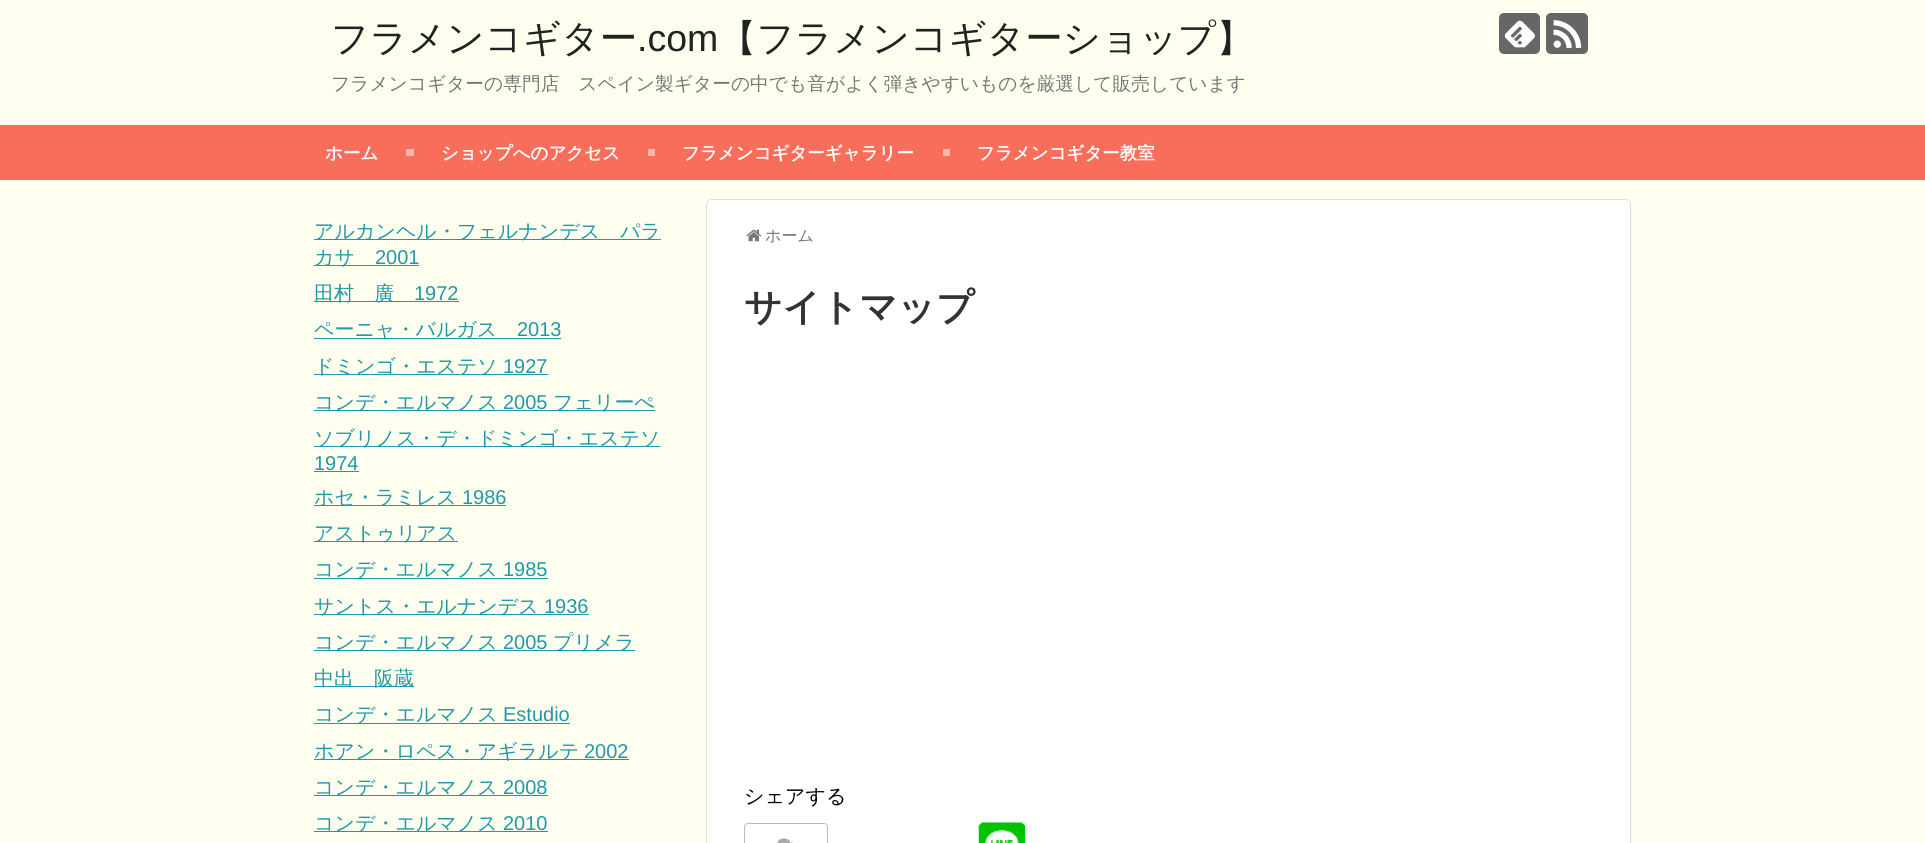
import math
import cairo

surface = cairo.ImageSurface(cairo.FORMAT_RGB24, 1925, 843)
ctx = cairo.Context(surface)
options = cairo.FontOptions()
options.set_hint_metrics(cairo.HINT_METRICS_OFF)
options.set_hint_style(cairo.HINT_STYLE_NONE)
ctx.set_font_options(options)
ctx.set_miter_limit(4)


def set_color(code):
    ctx.set_source_rgb(*(v / 255 for v in bytes.fromhex(code[-6:])))


def draw_text(x, y, s, family, size, color, bold=False, italic=False):
    ctx.select_font_face(family, cairo.FONT_SLANT_ITALIC if italic else cairo.FONT_SLANT_NORMAL, cairo.FONT_WEIGHT_BOLD if bold else cairo.FONT_WEIGHT_NORMAL)
    ctx.set_font_size(size)
    set_color(color)
    ctx.move_to(x, y)
    ctx.show_text(s)


def fill_rect(x, y, w, h, color):
    set_color(color)
    ctx.rectangle(x, y, w, h)
    ctx.fill()


def rounded_rect(x, y, w, h, r):
    ctx.new_sub_path()
    for i, (u, v) in enumerate([(x + w - r, y + h - r), (x + r, y + h - r), (x + r, y + r), (x + w - r, y + r)]):
        ctx.arc(u, v, r, i * math.pi / 2, (i + 1) * math.pi / 2)
    ctx.close_path()


def draw_image(path, x, y, w, h):
    ctx.save()
    ctx.set_source_surface(cairo.ImageSurface.create_from_png(path), x, y)
    ctx.rectangle(x, y, w, h)
    ctx.fill()
    ctx.restore()


set_color("#fffff0")
ctx.paint()
draw_text(331, 51, "フラメンコギター", "WenQuanYi Zen Hei Medium", 37.5, "#222222")
draw_text(637, 51, ".com", "Liberation Sans", 37.5, "#222222")
draw_text(719, 51, "【フラメンコギターショップ】", "WenQuanYi Zen Hei Medium", 37.5, "#222222")
draw_text(331, 90, "フラメンコギターの専門店　スペイン製ギターの中でも音がよく弾きやすいものを厳選して販売しています", "WenQuanYi Zen Hei Medium", 18.75, "#777777")
set_color("#666666")
rounded_rect(1499, 13, 41, 41, 5)
ctx.fill()
draw_image("assets/img1.png", 1504, 20, 31, 28)
rounded_rect(1546, 13, 42, 41, 5)
ctx.fill()
draw_image("assets/img2.png", 1553, 20, 29, 28)
fill_rect(0, 125, 1925, 55, "#f96e5b")
draw_text(325, 159, "ホーム", "WenQuanYi Zen Hei", 17.5, "#ffffff", bold=True)
fill_rect(406, 149, 8, 7, "#fcb7ad")
draw_text(441, 159, "ショップへのアクセス", "WenQuanYi Zen Hei", 17.5, "#ffffff", bold=True)
fill_rect(648, 149, 7, 7, "#fcb7ad")
draw_text(682, 159, "フラメンコギターギャラリー", "WenQuanYi Zen Hei", 17.5, "#ffffff", bold=True)
fill_rect(943, 149, 7, 7, "#fcb7ad")
draw_text(977, 159, "フラメンコギター教室", "WenQuanYi Zen Hei", 17.5, "#ffffff", bold=True)
fill_rect(314, 239, 347, 1, "#2098a8")
draw_text(314, 238, "アルカンヘル・フェルナンデス　パラ", "WenQuanYi Zen Hei Medium", 20, "#2098a8")
fill_rect(314, 265, 105, 1, "#2098a8")
draw_text(314, 264, "カサ", "WenQuanYi Zen Hei Medium", 20, "#2098a8")
draw_text(375, 264, "2001", "Liberation Sans", 20, "#2098a8")
fill_rect(314, 301, 145, 1, "#2098a8")
draw_text(314, 300, "田村　廣", "WenQuanYi Zen Hei Medium", 20, "#2098a8")
draw_text(414, 300, "1972", "Liberation Sans", 20, "#2098a8")
fill_rect(314, 338, 247, 1, "#2098a8")
draw_text(314, 336, "ペーニャ・バルガス", "WenQuanYi Zen Hei Medium", 20, "#2098a8")
draw_text(517, 336, "2013", "Liberation Sans", 20, "#2098a8")
fill_rect(314, 374, 234, 1, "#2098a8")
draw_text(314, 373, "ドミンゴ・エステソ", "WenQuanYi Zen Hei Medium", 20, "#2098a8")
draw_text(503, 373, "1927", "Liberation Sans", 20, "#2098a8")
fill_rect(314, 410, 341, 1, "#2098a8")
draw_text(314, 409, "コンデ・エルマノス", "WenQuanYi Zen Hei Medium", 20, "#2098a8")
draw_text(503, 409, "2005", "Liberation Sans", 20, "#2098a8")
draw_text(553, 409, "フェリーぺ", "WenQuanYi Zen Hei Medium", 20, "#2098a8")
fill_rect(314, 446, 346, 1, "#2098a8")
draw_text(314, 445, "ソブリノス・デ・ドミンゴ・エステソ", "WenQuanYi Zen Hei Medium", 20, "#2098a8")
draw_text(314, 470, "1974", "Liberation Sans", 20, "#2098a8")
fill_rect(314, 471, 45, 1, "#2098a8")
fill_rect(314, 505, 192, 1, "#2098a8")
draw_text(314, 504, "ホセ・ラミレス", "WenQuanYi Zen Hei Medium", 20, "#2098a8")
draw_text(462, 504, "1986", "Liberation Sans", 20, "#2098a8")
fill_rect(314, 541, 144, 1, "#2098a8")
draw_text(314, 540, "アストゥリアス", "WenQuanYi Zen Hei Medium", 20, "#2098a8")
fill_rect(314, 578, 234, 1, "#2098a8")
draw_text(314, 576, "コンデ・エルマノス", "WenQuanYi Zen Hei Medium", 20, "#2098a8")
draw_text(503, 576, "1985", "Liberation Sans", 20, "#2098a8")
fill_rect(314, 614, 275, 1, "#2098a8")
draw_text(314, 613, "サントス・エルナンデス", "WenQuanYi Zen Hei Medium", 20, "#2098a8")
draw_text(544, 613, "1936", "Liberation Sans", 20, "#2098a8")
fill_rect(314, 650, 321, 1, "#2098a8")
draw_text(314, 649, "コンデ・エルマノス", "WenQuanYi Zen Hei Medium", 20, "#2098a8")
draw_text(503, 649, "2005", "Liberation Sans", 20, "#2098a8")
draw_text(553, 649, "プリメラ", "WenQuanYi Zen Hei Medium", 20, "#2098a8")
fill_rect(314, 686, 100, 1, "#2098a8")
draw_text(314, 685, "中出　阪蔵", "WenQuanYi Zen Hei Medium", 20, "#2098a8")
fill_rect(314, 723, 256, 1, "#2098a8")
draw_text(314, 721, "コンデ・エルマノス", "WenQuanYi Zen Hei Medium", 20, "#2098a8")
draw_text(503, 721, "Estudio", "Liberation Sans", 20, "#2098a8")
fill_rect(314, 759, 315, 1, "#2098a8")
draw_text(314, 758, "ホアン・ロペス・アギラルテ", "WenQuanYi Zen Hei Medium", 20, "#2098a8")
draw_text(584, 758, "2002", "Liberation Sans", 20, "#2098a8")
fill_rect(314, 795, 234, 1, "#2098a8")
draw_text(314, 794, "コンデ・エルマノス", "WenQuanYi Zen Hei Medium", 20, "#2098a8")
draw_text(503, 794, "2008", "Liberation Sans", 20, "#2098a8")
fill_rect(314, 831, 234, 1, "#2098a8")
draw_text(314, 830, "コンデ・エルマノス", "WenQuanYi Zen Hei Medium", 20, "#2098a8")
draw_text(503, 830, "2010", "Liberation Sans", 20, "#2098a8")
set_color("#ffffff")
rounded_rect(706.5, 199.5, 924, 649, 4.5)
ctx.fill_preserve()
set_color("#dddddd")
ctx.set_line_width(1)
ctx.stroke()
draw_image("assets/img3.png", 746, 229, 15, 13)
draw_text(765, 241, "ホーム", "WenQuanYi Zen Hei Medium", 16, "#777777")
draw_text(744, 320, "サイトマップ", "WenQuanYi Zen Hei", 37.5, "#333333", bold=True)
draw_text(744, 803, "シェアする", "WenQuanYi Zen Hei Medium", 20, "#000000")
rounded_rect(744.5, 823.5, 83, 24, 3.5)
set_color("#bbbbbb")
ctx.stroke()
draw_image("assets/img4.png", 777, 838, 16, 5)
draw_image("assets/img5.png", 978, 822, 47, 21)
surface.write_to_png("output.png")
